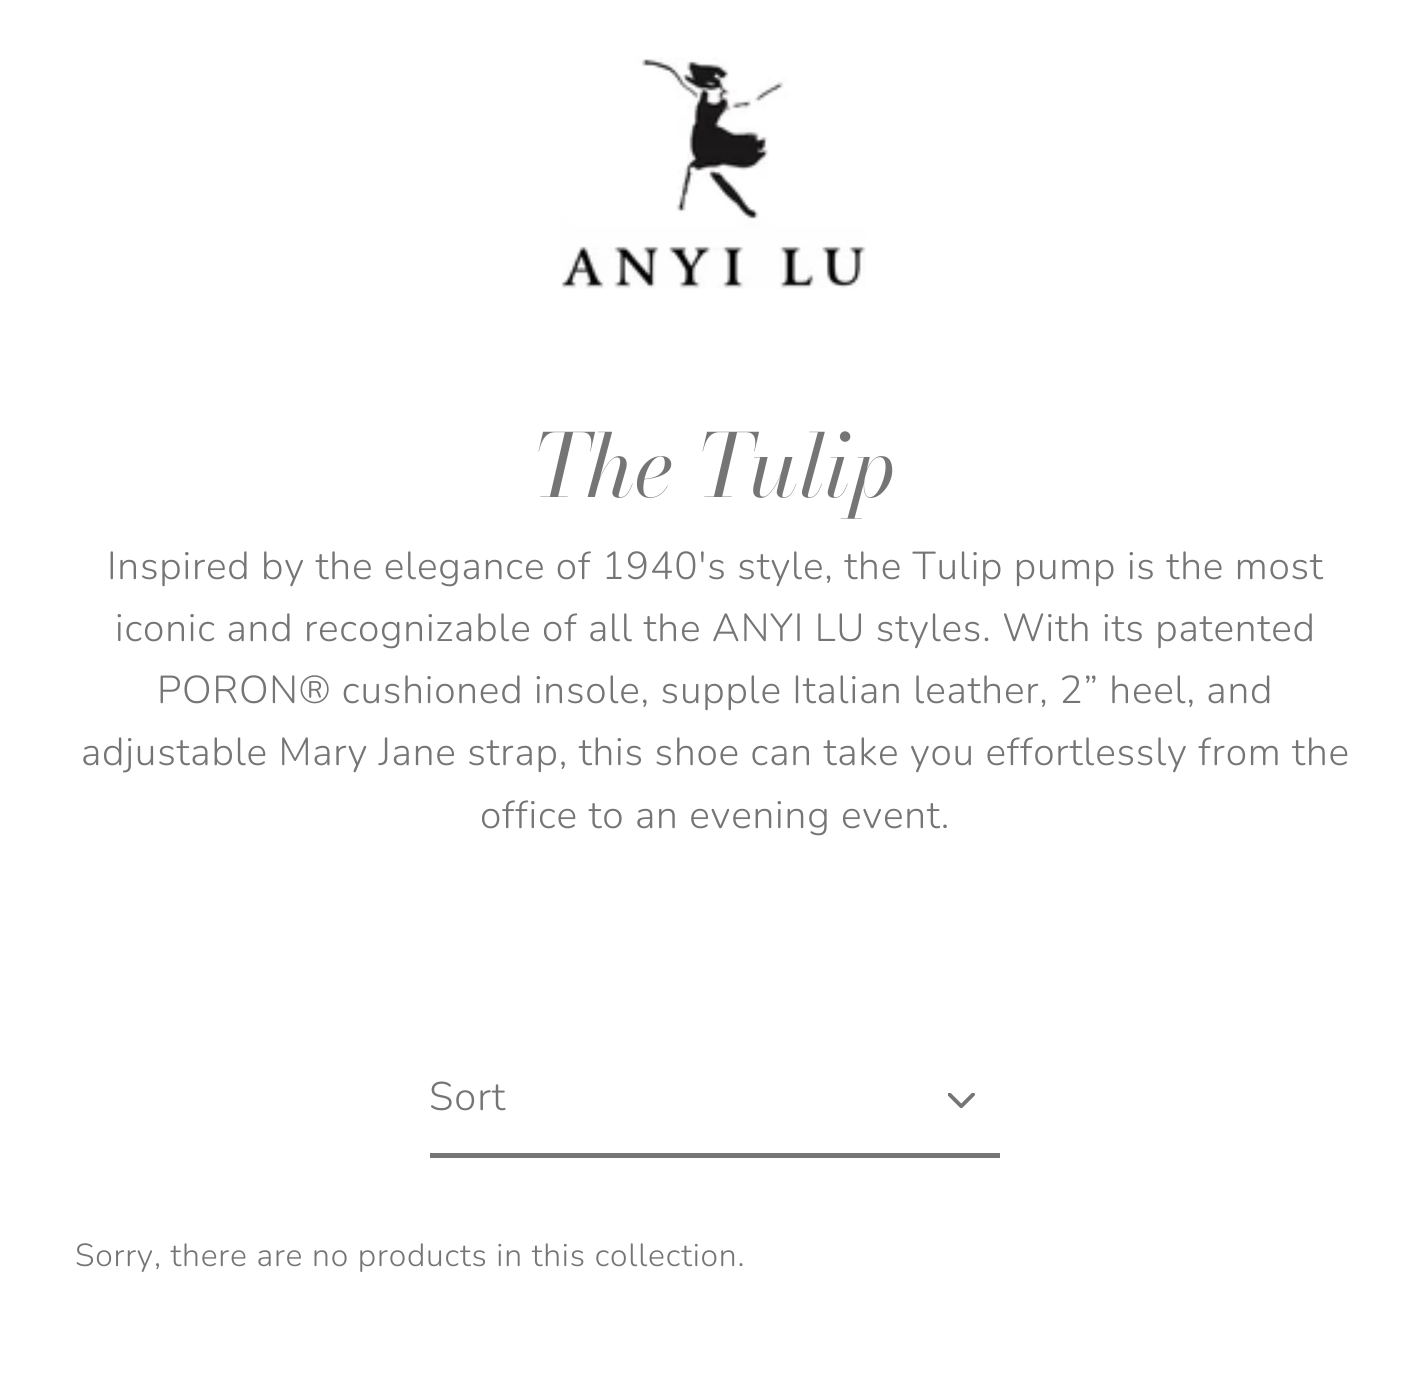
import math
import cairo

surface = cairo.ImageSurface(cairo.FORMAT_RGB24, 1428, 1395)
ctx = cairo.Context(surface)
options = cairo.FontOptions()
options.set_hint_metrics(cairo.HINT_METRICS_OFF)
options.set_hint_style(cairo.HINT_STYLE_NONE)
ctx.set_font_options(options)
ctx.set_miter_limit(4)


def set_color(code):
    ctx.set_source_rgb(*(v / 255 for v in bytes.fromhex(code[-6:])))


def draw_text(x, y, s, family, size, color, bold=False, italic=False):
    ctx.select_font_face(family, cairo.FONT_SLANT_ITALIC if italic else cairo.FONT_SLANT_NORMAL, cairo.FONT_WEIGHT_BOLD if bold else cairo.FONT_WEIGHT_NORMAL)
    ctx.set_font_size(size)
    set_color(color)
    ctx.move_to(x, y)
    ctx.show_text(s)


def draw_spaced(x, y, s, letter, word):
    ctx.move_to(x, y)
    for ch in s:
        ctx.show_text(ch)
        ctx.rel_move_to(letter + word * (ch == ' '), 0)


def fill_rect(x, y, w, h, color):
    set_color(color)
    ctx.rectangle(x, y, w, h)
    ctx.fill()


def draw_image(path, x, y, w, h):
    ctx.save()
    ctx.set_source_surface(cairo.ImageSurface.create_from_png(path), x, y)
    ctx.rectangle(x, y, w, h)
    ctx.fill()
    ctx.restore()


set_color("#ffffff")
ctx.paint()
draw_image("assets/img1.png", 561, 57, 305, 232)
draw_text(532, 497, "The Tulip", "Bodoni Moda", 87, "#757575", italic=True)
ctx.select_font_face("Nunito Light")
ctx.set_font_size(38.9)
draw_spaced(107, 579, "Inspired by the elegance of 1940's style, the Tulip pump is the most", 0.8, 0)
draw_spaced(115, 641, "iconic and recognizable of all the ANYI LU styles. With its patented", 0.8, 0)
draw_spaced(157, 703, "PORON® cushioned insole, supple Italian leather, 2” heel, and", 0.8, 0)
draw_spaced(81, 765, "adjustable Mary Jane strap, this shoe can take you effortlessly from the", 0.8, 0)
draw_spaced(480, 828, "office to an evening event.", 0.8, 0)
draw_image("assets/img2.png", 948, 1093, 27, 15)
fill_rect(430, 1153, 570, 5, "#757575")
ctx.set_font_size(40)
draw_spaced(429, 1110, "Sort", 1, 0)
ctx.set_font_size(31.9)
draw_spaced(75, 1266, "Sorry, there are no products in this collection.", 0.8, 0)
surface.write_to_png("output.png")
